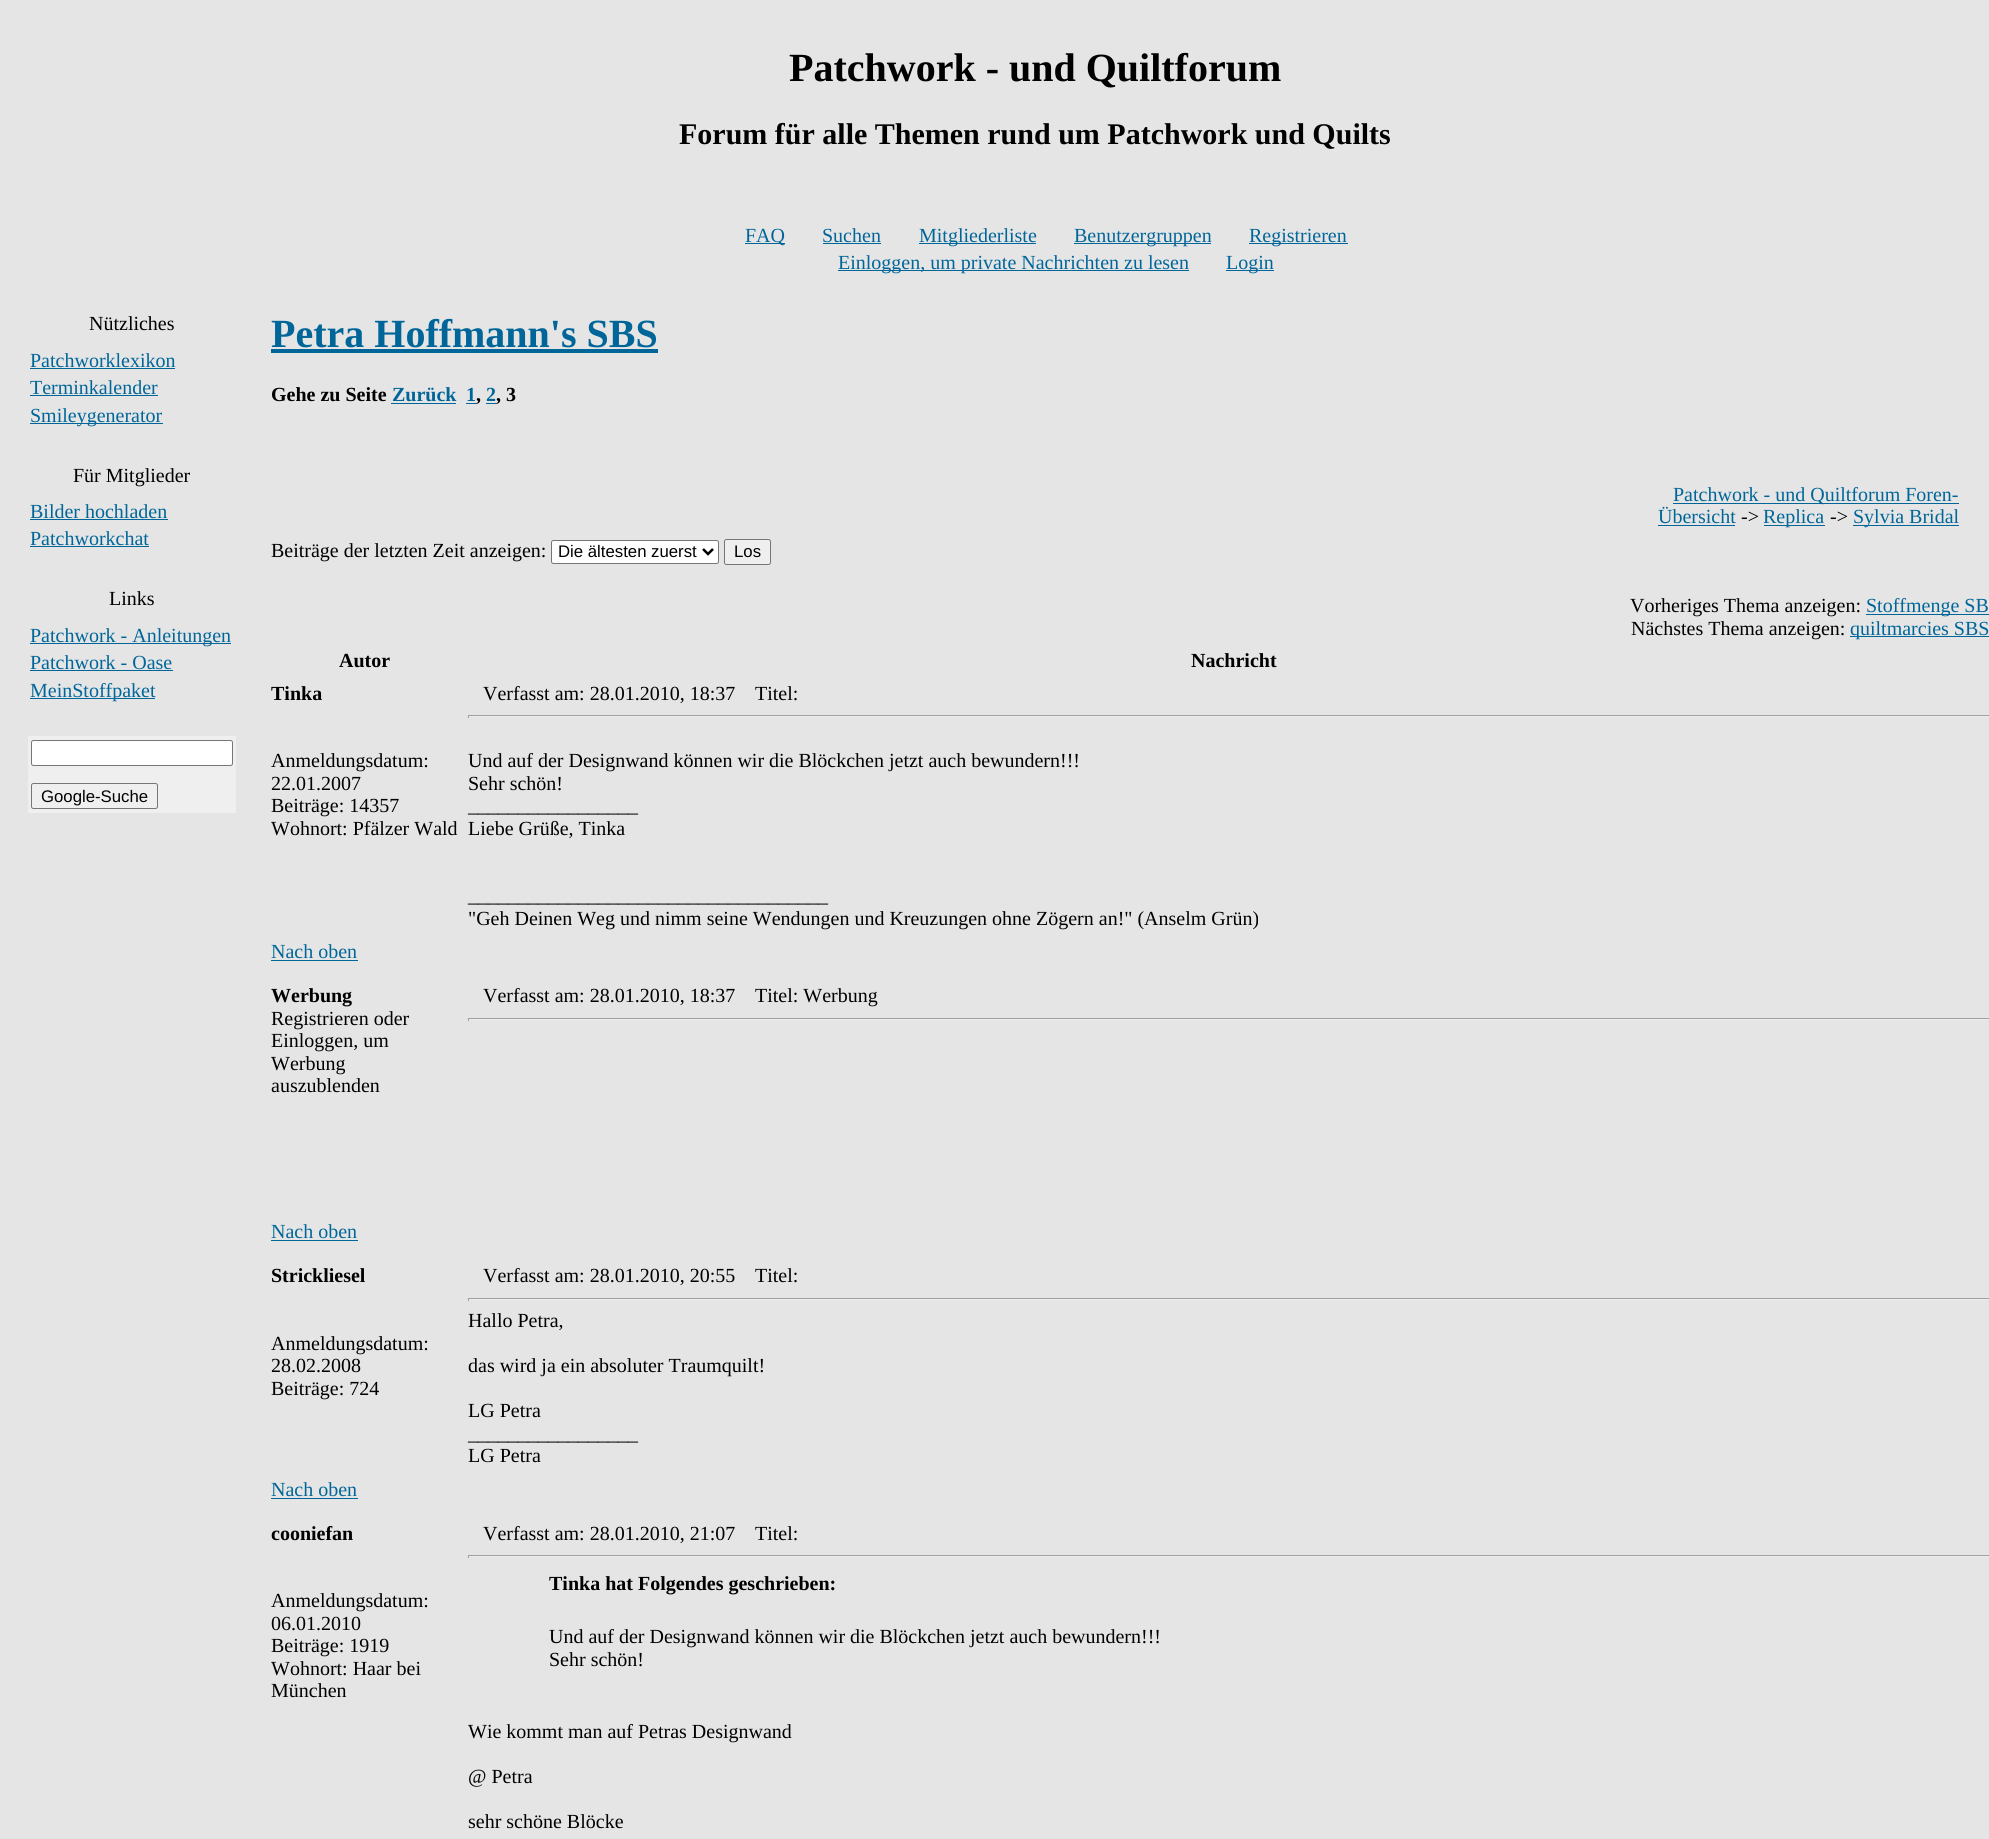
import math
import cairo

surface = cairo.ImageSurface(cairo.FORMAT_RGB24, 1989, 1839)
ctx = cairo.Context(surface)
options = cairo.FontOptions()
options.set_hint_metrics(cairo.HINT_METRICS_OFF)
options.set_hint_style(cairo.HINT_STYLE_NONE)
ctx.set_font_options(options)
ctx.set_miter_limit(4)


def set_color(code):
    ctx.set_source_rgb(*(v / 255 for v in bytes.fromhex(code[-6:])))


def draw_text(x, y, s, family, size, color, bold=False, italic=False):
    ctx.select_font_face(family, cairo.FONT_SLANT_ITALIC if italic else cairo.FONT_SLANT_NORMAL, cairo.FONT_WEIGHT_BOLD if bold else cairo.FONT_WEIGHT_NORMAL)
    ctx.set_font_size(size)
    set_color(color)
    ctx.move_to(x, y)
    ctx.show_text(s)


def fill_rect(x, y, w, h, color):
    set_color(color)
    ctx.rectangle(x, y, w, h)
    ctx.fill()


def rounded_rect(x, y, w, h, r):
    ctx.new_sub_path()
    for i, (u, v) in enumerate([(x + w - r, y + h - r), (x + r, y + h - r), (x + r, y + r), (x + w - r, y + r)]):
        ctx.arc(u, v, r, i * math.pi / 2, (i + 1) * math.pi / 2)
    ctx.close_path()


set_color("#e5e5e5")
ctx.paint()
draw_text(789, 81, "Patchwork - und Quiltforum", "Liberation Serif", 40, "#000000", bold=True)
draw_text(679, 144, "Forum für alle Themen rund um Patchwork und Quilts", "Liberation Serif", 30, "#000000", bold=True)
fill_rect(745, 243, 40, 1, "#006699")
draw_text(745, 242, "FAQ", "Liberation Serif", 20, "#006699")
draw_text(822, 242, "Suchen", "Liberation Serif", 20, "#006699")
fill_rect(823, 243, 58, 1, "#006699")
fill_rect(919, 243, 117, 1, "#006699")
draw_text(919, 242, "Mitgliederliste", "Liberation Serif", 20, "#006699")
fill_rect(1074, 243, 137, 1, "#006699")
draw_text(1074, 242, "Benutzergruppen", "Liberation Serif", 20, "#006699")
fill_rect(1249, 243, 99, 1, "#006699")
draw_text(1249, 242, "Registrieren", "Liberation Serif", 20, "#006699")
fill_rect(838, 270, 351, 1, "#006699")
draw_text(838, 269, "Einloggen, um private Nachrichten zu lesen", "Liberation Serif", 20, "#006699")
fill_rect(1226, 270, 48, 1, "#006699")
draw_text(1226, 269, "Login", "Liberation Serif", 20, "#006699")
draw_text(89, 330, "Nützliches", "Liberation Serif", 20, "#000000")
draw_text(30, 367, "Patchworklexikon", "Liberation Serif", 20, "#006699")
fill_rect(30, 368, 145, 1, "#006699")
draw_text(30, 394, "Terminkalender", "Liberation Serif", 20, "#006699")
fill_rect(30, 395, 128, 1, "#006699")
fill_rect(30, 423, 133, 1, "#006699")
draw_text(30, 422, "Smileygenerator", "Liberation Serif", 20, "#006699")
draw_text(73, 482, "Für Mitglieder", "Liberation Serif", 20, "#000000")
draw_text(30, 518, "Bilder hochladen", "Liberation Serif", 20, "#006699")
fill_rect(30, 519, 138, 1, "#006699")
draw_text(30, 545, "Patchworkchat", "Liberation Serif", 20, "#006699")
fill_rect(30, 546, 119, 1, "#006699")
draw_text(109, 605, "Links", "Liberation Serif", 20, "#000000")
fill_rect(30, 643, 201, 1, "#006699")
draw_text(30, 642, "Patchwork - Anleitungen", "Liberation Serif", 20, "#006699")
draw_text(30, 669, "Patchwork - Oase", "Liberation Serif", 20, "#006699")
fill_rect(30, 670, 143, 1, "#006699")
fill_rect(30, 698, 125, 1, "#006699")
draw_text(30, 697, "MeinStoffpaket", "Liberation Serif", 20, "#006699")
fill_rect(28, 736, 208, 77, "#efefef")
set_color("#ffffff")
rounded_rect(31.5, 740.5, 201, 25, 2)
ctx.fill_preserve()
set_color("#767676")
ctx.set_line_width(1)
ctx.stroke()
rounded_rect(31.5, 783.5, 126, 25, 2)
ctx.stroke()
draw_text(41, 802, "Google-Suche", "Liberation Sans", 16.75, "#000000")
draw_text(271, 347, "Petra Hoffmann's SBS", "Liberation Serif", 40, "#006699", bold=True)
fill_rect(271, 349, 387, 4, "#006699")
draw_text(271, 401, "Gehe zu Seite", "Liberation Serif", 20, "#000000", bold=True)
draw_text(392, 401, "Zurück", "Liberation Serif", 20, "#006699", bold=True)
fill_rect(391, 403, 65, 1, "#006699")
draw_text(466, 401, "1", "Liberation Serif", 20, "#006699", bold=True)
draw_text(476, 401, ",", "Liberation Serif", 20, "#000000", bold=True)
fill_rect(466, 403, 10, 1, "#006699")
fill_rect(486, 403, 10, 1, "#006699")
draw_text(486, 401, "2", "Liberation Serif", 20, "#006699", bold=True)
draw_text(496, 401, ", 3", "Liberation Serif", 20, "#000000", bold=True)
fill_rect(1673, 503, 286, 1, "#006699")
draw_text(1673, 501, "Patchwork - und Quiltforum Foren-", "Liberation Serif", 20, "#006699")
draw_text(1658, 523, "Übersicht", "Liberation Serif", 20, "#006699")
fill_rect(1658, 525, 77, 1, "#006699")
draw_text(1741, 523, "->", "Liberation Serif", 20, "#000000")
fill_rect(1764, 525, 61, 1, "#006699")
draw_text(1763, 523, "Replica", "Liberation Serif", 20, "#006699")
draw_text(1830, 523, "->", "Liberation Serif", 20, "#000000")
fill_rect(1853, 525, 106, 1, "#006699")
draw_text(1853, 523, "Sylvia Bridal", "Liberation Serif", 20, "#006699")
draw_text(271, 557, "Beiträge der letzten Zeit anzeigen:", "Liberation Serif", 20, "#000000")
set_color("#ffffff")
rounded_rect(551.5, 540.5, 167, 23, 2)
ctx.fill_preserve()
set_color("#767676")
ctx.stroke()
ctx.new_path()
ctx.move_to(703, 549)
ctx.line_to(708, 554)
ctx.line_to(713, 549)
set_color("#000000")
ctx.set_line_width(2.5)
ctx.stroke()
draw_text(558, 557, "Die ältesten zuerst", "Liberation Sans", 16.75, "#000000")
set_color("#efefef")
rounded_rect(724.5, 539.5, 46, 25, 2)
ctx.fill_preserve()
set_color("#767676")
ctx.set_line_width(1)
ctx.stroke()
draw_text(734, 557, "Los", "Liberation Sans", 16.75, "#000000")
draw_text(1630, 612, "Vorheriges Thema anzeigen:", "Liberation Serif", 20, "#000000")
fill_rect(1866, 614, 123, 1, "#006699")
draw_text(1866, 612, "Stoffmenge SB", "Liberation Serif", 20, "#006699")
draw_text(1631, 635, "Nächstes Thema anzeigen:", "Liberation Serif", 20, "#000000")
fill_rect(1850, 636, 139, 1, "#006699")
draw_text(1850, 635, "quiltmarcies SBS", "Liberation Serif", 20, "#006699")
draw_text(339, 667, "Autor", "Liberation Serif", 20, "#000000", bold=True)
draw_text(1191, 667, "Nachricht", "Liberation Serif", 20, "#000000", bold=True)
draw_text(271, 700, "Tinka", "Liberation Serif", 20, "#000000", bold=True)
draw_text(271, 767, "Anmeldungsdatum:", "Liberation Serif", 20, "#000000")
draw_text(271, 790, "22.01.2007", "Liberation Serif", 20, "#000000")
draw_text(271, 812, "Beiträge: 14357", "Liberation Serif", 20, "#000000")
draw_text(271, 835, "Wohnort: Pfälzer Wald", "Liberation Serif", 20, "#000000")
draw_text(483, 700, "Verfasst am: 28.01.2010, 18:37", "Liberation Serif", 20, "#000000")
draw_text(755, 700, "Titel:", "Liberation Serif", 20, "#000000")
fill_rect(468, 715, 1521, 1, "#9f9f9f")
fill_rect(468, 716, 1521, 1, "#eeeeee")
fill_rect(468, 715, 1, 3, "#9f9f9f")
draw_text(468, 767, "Und auf der Designwand können wir die Blöckchen jetzt auch bewundern!!!", "Liberation Serif", 20, "#000000")
draw_text(468, 790, "Sehr schön!", "Liberation Serif", 20, "#000000")
draw_text(468, 812, "_________________", "Liberation Serif", 20, "#000000")
draw_text(468, 835, "Liebe Grüße, Tinka", "Liberation Serif", 20, "#000000")
draw_text(468, 902, "____________________________________", "Liberation Serif", 20, "#000000")
draw_text(468, 925, "\"Geh Deinen Weg und nimm seine Wendungen und Kreuzungen ohne Zögern an!\" (Anselm Grün)", "Liberation Serif", 20, "#000000")
draw_text(271, 958, "Nach oben", "Liberation Serif", 20, "#006699")
fill_rect(271, 960, 87, 1, "#006699")
draw_text(271, 1002, "Werbung", "Liberation Serif", 20, "#000000", bold=True)
draw_text(271, 1025, "Registrieren oder", "Liberation Serif", 20, "#000000")
draw_text(271, 1047, "Einloggen, um", "Liberation Serif", 20, "#000000")
draw_text(271, 1070, "Werbung", "Liberation Serif", 20, "#000000")
draw_text(271, 1092, "auszublenden", "Liberation Serif", 20, "#000000")
draw_text(483, 1002, "Verfasst am: 28.01.2010, 18:37", "Liberation Serif", 20, "#000000")
draw_text(755, 1002, "Titel: Werbung", "Liberation Serif", 20, "#000000")
fill_rect(468, 1018, 1521, 1, "#9f9f9f")
fill_rect(468, 1019, 1521, 1, "#eeeeee")
fill_rect(468, 1018, 1, 3, "#9f9f9f")
draw_text(271, 1238, "Nach oben", "Liberation Serif", 20, "#006699")
fill_rect(271, 1240, 87, 1, "#006699")
draw_text(271, 1282, "Strickliesel", "Liberation Serif", 20, "#000000", bold=True)
draw_text(271, 1350, "Anmeldungsdatum:", "Liberation Serif", 20, "#000000")
draw_text(271, 1372, "28.02.2008", "Liberation Serif", 20, "#000000")
draw_text(271, 1395, "Beiträge: 724", "Liberation Serif", 20, "#000000")
draw_text(483, 1282, "Verfasst am: 28.01.2010, 20:55", "Liberation Serif", 20, "#000000")
draw_text(755, 1282, "Titel:", "Liberation Serif", 20, "#000000")
fill_rect(468, 1298, 1521, 1, "#9f9f9f")
fill_rect(468, 1299, 1521, 1, "#eeeeee")
fill_rect(468, 1298, 1, 3, "#9f9f9f")
draw_text(468, 1327, "Hallo Petra,", "Liberation Serif", 20, "#000000")
draw_text(468, 1372, "das wird ja ein absoluter Traumquilt!", "Liberation Serif", 20, "#000000")
draw_text(468, 1417, "LG Petra", "Liberation Serif", 20, "#000000")
draw_text(468, 1440, "_________________", "Liberation Serif", 20, "#000000")
draw_text(468, 1462, "LG Petra", "Liberation Serif", 20, "#000000")
draw_text(271, 1496, "Nach oben", "Liberation Serif", 20, "#006699")
fill_rect(271, 1498, 87, 1, "#006699")
draw_text(271, 1540, "cooniefan", "Liberation Serif", 20, "#000000", bold=True)
draw_text(271, 1607, "Anmeldungsdatum:", "Liberation Serif", 20, "#000000")
draw_text(271, 1630, "06.01.2010", "Liberation Serif", 20, "#000000")
draw_text(271, 1652, "Beiträge: 1919", "Liberation Serif", 20, "#000000")
draw_text(271, 1675, "Wohnort: Haar bei", "Liberation Serif", 20, "#000000")
draw_text(271, 1697, "München", "Liberation Serif", 20, "#000000")
draw_text(483, 1540, "Verfasst am: 28.01.2010, 21:07", "Liberation Serif", 20, "#000000")
draw_text(755, 1540, "Titel:", "Liberation Serif", 20, "#000000")
fill_rect(468, 1555, 1521, 1, "#9f9f9f")
fill_rect(468, 1556, 1521, 1, "#eeeeee")
fill_rect(468, 1555, 1, 3, "#9f9f9f")
draw_text(549, 1590, "Tinka hat Folgendes geschrieben:", "Liberation Serif", 20, "#000000", bold=True)
draw_text(549, 1643, "Und auf der Designwand können wir die Blöckchen jetzt auch bewundern!!!", "Liberation Serif", 20, "#000000")
draw_text(549, 1666, "Sehr schön!", "Liberation Serif", 20, "#000000")
draw_text(468, 1738, "Wie kommt man auf Petras Designwand", "Liberation Serif", 20, "#000000")
draw_text(468, 1783, "@ Petra", "Liberation Serif", 20, "#000000")
draw_text(468, 1828, "sehr schöne Blöcke", "Liberation Serif", 20, "#000000")
surface.write_to_png("output.png")
